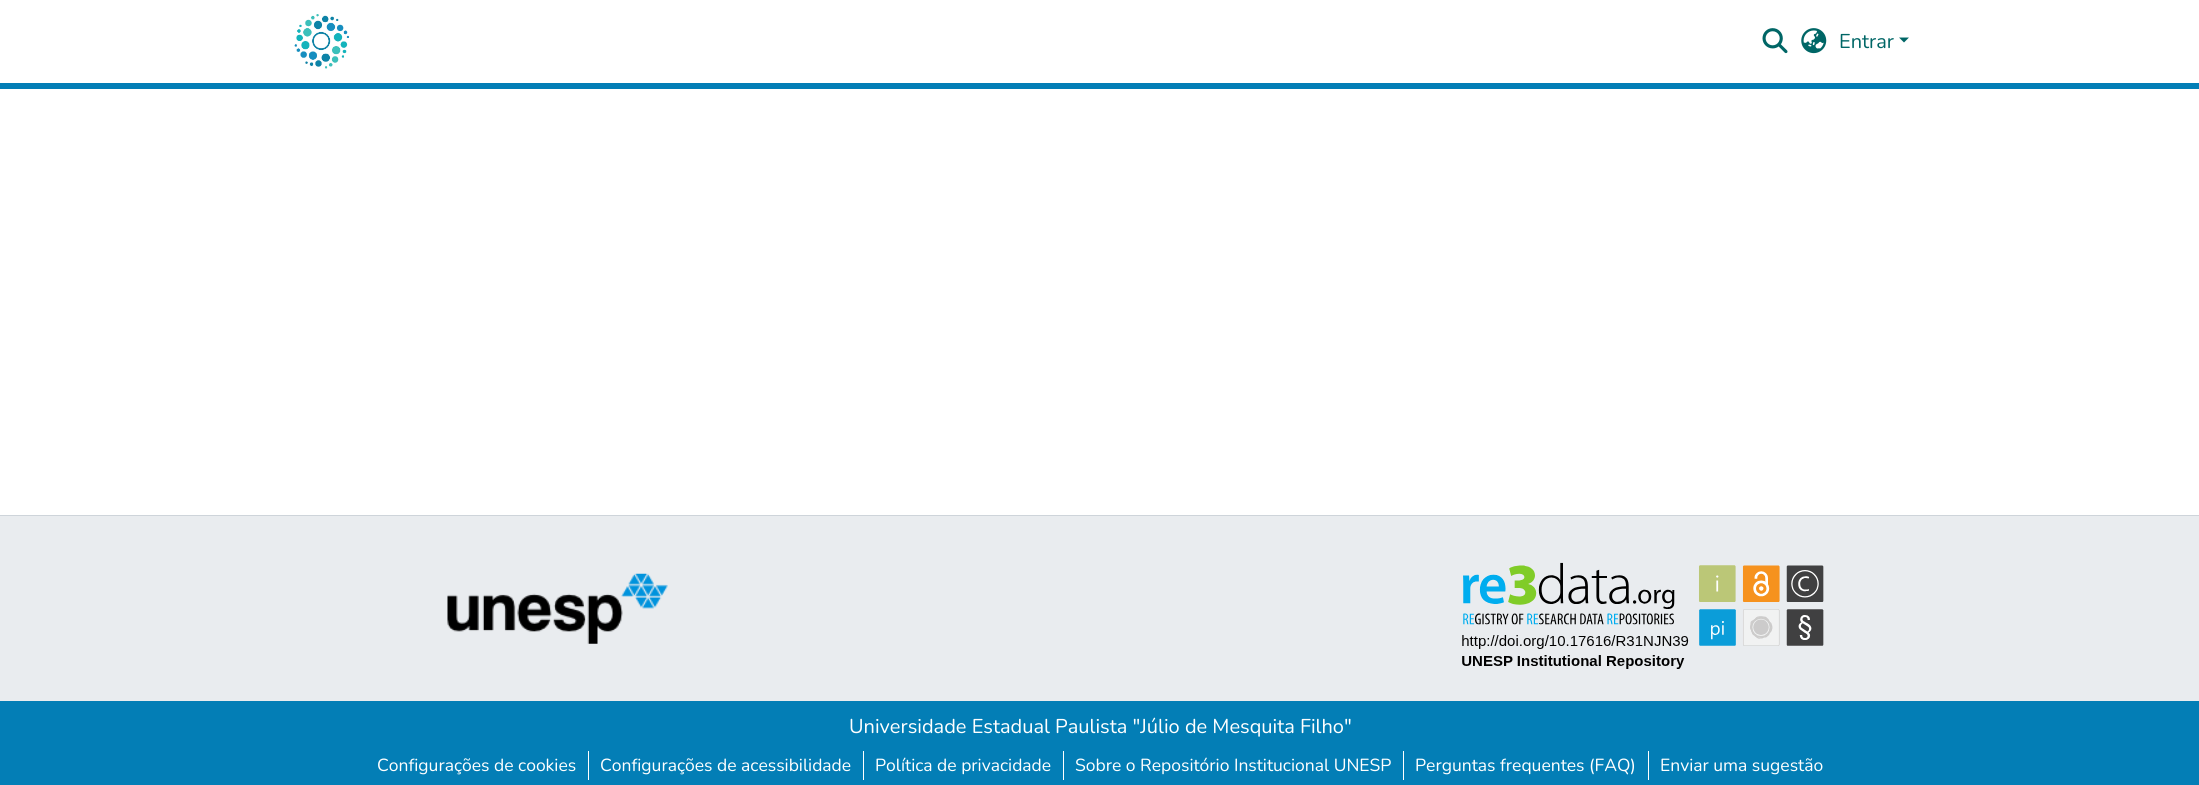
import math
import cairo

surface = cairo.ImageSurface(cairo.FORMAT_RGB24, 2199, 785)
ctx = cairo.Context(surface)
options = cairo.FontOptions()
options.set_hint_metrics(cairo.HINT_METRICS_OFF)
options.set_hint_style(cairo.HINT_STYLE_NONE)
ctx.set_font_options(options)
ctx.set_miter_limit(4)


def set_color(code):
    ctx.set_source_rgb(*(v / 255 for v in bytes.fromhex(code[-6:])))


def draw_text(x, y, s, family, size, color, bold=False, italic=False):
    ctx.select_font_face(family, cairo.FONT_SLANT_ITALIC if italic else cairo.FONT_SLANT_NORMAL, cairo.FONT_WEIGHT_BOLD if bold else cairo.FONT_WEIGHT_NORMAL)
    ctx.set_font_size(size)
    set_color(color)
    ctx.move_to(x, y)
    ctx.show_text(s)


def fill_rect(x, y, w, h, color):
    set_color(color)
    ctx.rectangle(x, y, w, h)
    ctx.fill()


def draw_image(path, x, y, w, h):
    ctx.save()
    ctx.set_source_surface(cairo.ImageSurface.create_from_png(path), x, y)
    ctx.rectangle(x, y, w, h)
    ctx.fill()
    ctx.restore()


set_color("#ffffff")
ctx.paint()
fill_rect(0, 83, 2199, 6, "#037eb6")
draw_image("assets/img1.png", 294, 14, 56, 55)
draw_image("assets/img2.png", 1762, 28, 26, 26)
draw_image("assets/img3.png", 1801, 28, 26, 26)
draw_text(1839, 48, "Entrar", "Nunito", 20, "#006666")
ctx.new_path()
ctx.move_to(1899, 37.5)
ctx.line_to(1909, 37.5)
ctx.line_to(1904, 42.5)
ctx.close_path()
ctx.fill()
fill_rect(0, 701, 2199, 84, "#037eb6")
fill_rect(0, 515, 2199, 1, "#ced4da")
fill_rect(0, 516, 2199, 185, "#e9ecef")
draw_image("assets/img4.png", 447, 573, 221, 71)
draw_image("assets/img5.png", 1462, 562, 362, 107)
draw_text(849, 733, "Universidade Estadual Paulista \"Júlio de Mesquita Filho\"", "Nunito", 20, "#ffffff")
draw_text(377, 771, "Configurações de cookies", "Nunito", 17.5, "#ffffff")
fill_rect(588, 751, 1, 29, "#ffffff")
draw_text(600, 771, "Configurações de acessibilidade", "Nunito", 17.5, "#ffffff")
fill_rect(863, 751, 1, 29, "#ffffff")
draw_text(875, 771, "Política de privacidade", "Nunito", 17.5, "#ffffff")
fill_rect(1063, 751, 1, 29, "#ffffff")
draw_text(1075, 771, "Sobre o Repositório Institucional UNESP", "Nunito", 17.5, "#ffffff")
fill_rect(1403, 751, 1, 29, "#ffffff")
draw_text(1415, 771, "Perguntas frequentes (FAQ)", "Nunito", 17.5, "#ffffff")
fill_rect(1648, 751, 1, 29, "#ffffff")
draw_text(1660, 771, "Enviar uma sugestão", "Nunito", 17.5, "#ffffff")
surface.write_to_png("output.png")
